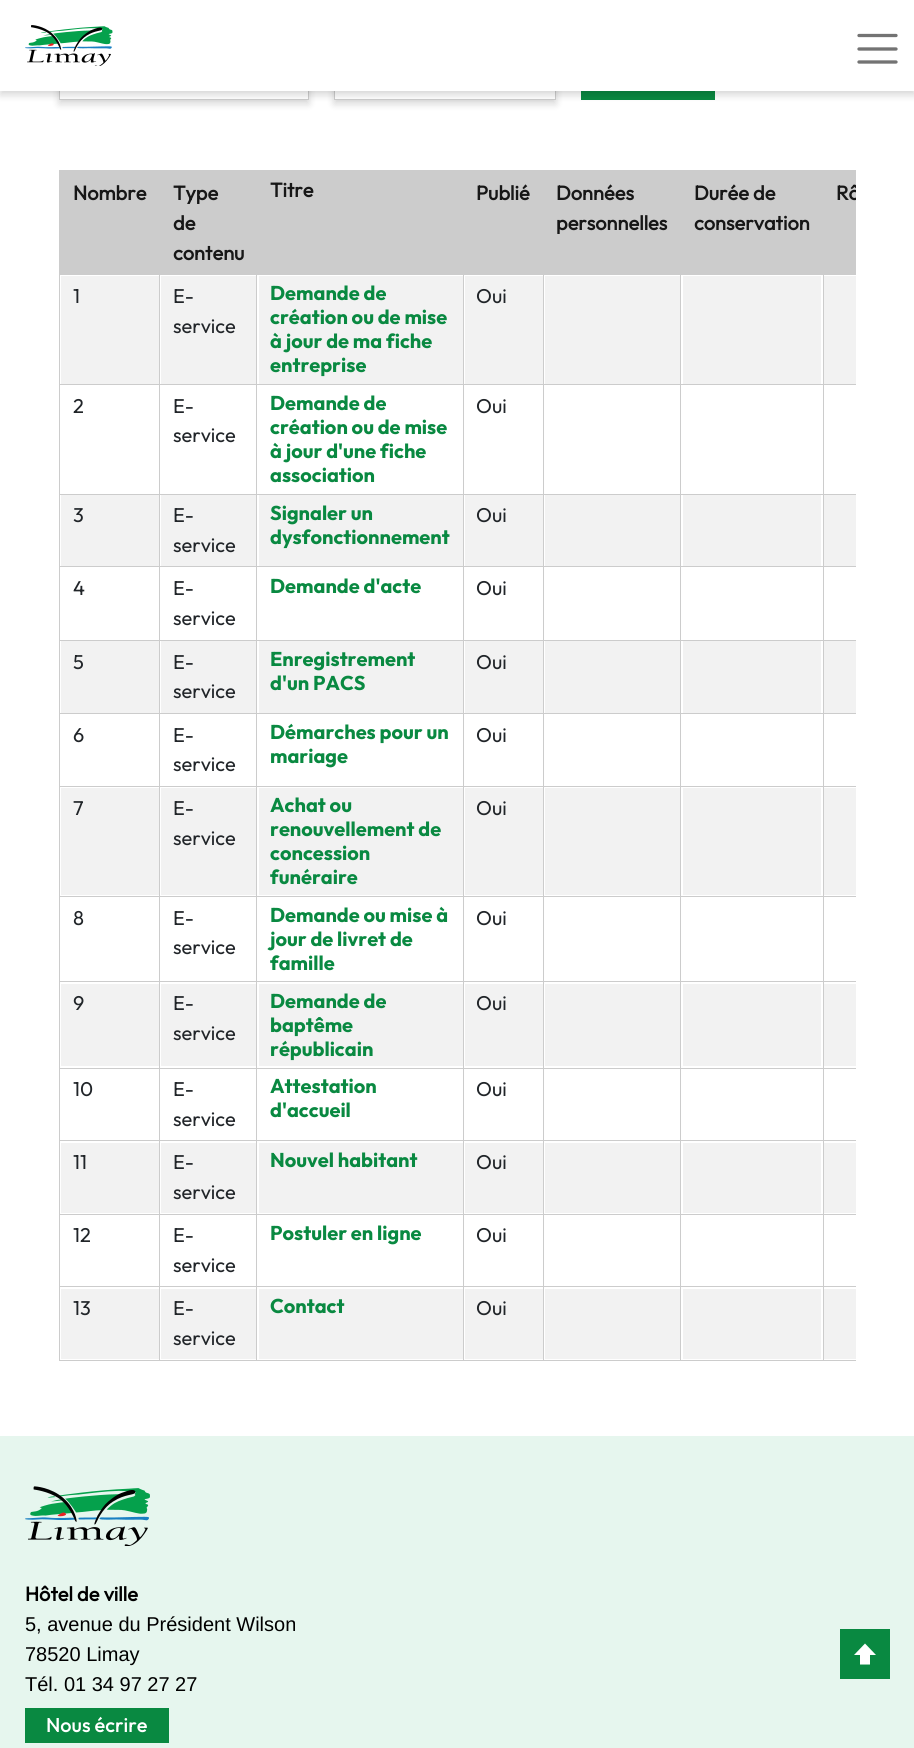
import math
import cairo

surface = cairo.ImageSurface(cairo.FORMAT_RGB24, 914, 1748)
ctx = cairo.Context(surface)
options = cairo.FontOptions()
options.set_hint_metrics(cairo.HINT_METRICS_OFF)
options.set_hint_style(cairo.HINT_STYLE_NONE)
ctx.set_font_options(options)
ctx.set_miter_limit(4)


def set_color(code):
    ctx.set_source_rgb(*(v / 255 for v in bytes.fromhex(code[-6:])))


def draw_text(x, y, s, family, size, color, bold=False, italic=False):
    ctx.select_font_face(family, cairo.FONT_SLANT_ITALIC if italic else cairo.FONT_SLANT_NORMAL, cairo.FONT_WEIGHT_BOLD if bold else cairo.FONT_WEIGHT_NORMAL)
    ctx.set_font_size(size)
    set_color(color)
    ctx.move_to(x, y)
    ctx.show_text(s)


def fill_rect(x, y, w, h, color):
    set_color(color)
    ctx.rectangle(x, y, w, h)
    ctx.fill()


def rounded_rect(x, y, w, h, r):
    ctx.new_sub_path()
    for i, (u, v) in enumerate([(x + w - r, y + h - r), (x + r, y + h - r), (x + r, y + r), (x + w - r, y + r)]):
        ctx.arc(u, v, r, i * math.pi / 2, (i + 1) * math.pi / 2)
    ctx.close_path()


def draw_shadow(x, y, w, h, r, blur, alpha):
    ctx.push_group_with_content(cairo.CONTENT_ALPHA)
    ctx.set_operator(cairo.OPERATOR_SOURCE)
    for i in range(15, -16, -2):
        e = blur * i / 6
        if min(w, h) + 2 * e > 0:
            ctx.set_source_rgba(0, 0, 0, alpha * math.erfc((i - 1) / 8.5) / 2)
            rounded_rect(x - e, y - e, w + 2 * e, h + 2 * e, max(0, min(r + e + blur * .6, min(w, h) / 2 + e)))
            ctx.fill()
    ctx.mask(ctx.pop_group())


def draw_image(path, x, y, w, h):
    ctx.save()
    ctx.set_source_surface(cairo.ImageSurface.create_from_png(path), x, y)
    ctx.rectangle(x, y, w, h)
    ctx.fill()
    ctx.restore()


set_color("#ffffff")
ctx.paint()
set_color("#000000")
draw_shadow(59, 54, 250, 50, 0, 4, 0.16)
fill_rect(60, 91, 248, 8, "#ffffff")
ctx.rectangle(59.5, 50.5, 249, 49)
set_color("#cccccc")
ctx.set_line_width(1)
ctx.stroke()
ctx.save()
ctx.set_fill_rule(cairo.FILL_RULE_EVEN_ODD)
ctx.new_path()
ctx.move_to(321, 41)
ctx.line_to(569, 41)
ctx.line_to(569, 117)
ctx.line_to(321, 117)
ctx.close_path()
ctx.move_to(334, 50)
ctx.line_to(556, 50)
ctx.line_to(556, 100)
ctx.line_to(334, 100)
ctx.close_path()
ctx.clip()
set_color("#000000")
draw_shadow(334, 54, 222, 50, 0, 4, 0.16)
ctx.restore()
ctx.rectangle(334.5, 50.5, 221, 49)
ctx.stroke()
fill_rect(581, 91, 134, 9, "#098941")
set_color("#000000")
draw_shadow(0, 4, 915, 91, 0, 4, 0.16)
fill_rect(0, 0, 914, 91, "#ffffff")
draw_image("assets/img1.png", 25, 25, 88, 41)
ctx.new_path()
ctx.move_to(859, 35.5)
ctx.line_to(896, 35.5)
ctx.move_to(859, 49)
ctx.line_to(896, 49)
ctx.move_to(859, 62)
ctx.line_to(896, 62)
set_color("#737373")
ctx.set_line_width(3.3)
ctx.set_line_cap(cairo.LINE_CAP_ROUND)
ctx.stroke()
fill_rect(59, 170, 797, 1, "#cccccc")
fill_rect(59, 1360, 797, 1, "#cccccc")
fill_rect(59, 170, 1, 1191, "#cccccc")
fill_rect(60, 171, 796, 103, "#cccccc")
draw_text(73, 200, "Nombre", "Outfit", 20, "#171717", bold=True)
draw_text(173, 200, "Type", "Outfit", 20, "#171717", bold=True)
draw_text(173, 230, "de", "Outfit", 20, "#171717", bold=True)
draw_text(173, 260, "contenu", "Outfit", 20, "#171717", bold=True)
draw_text(270, 197, "Titre", "Outfit", 20, "#171717", bold=True)
draw_text(476, 200, "Publié", "Outfit", 20, "#171717", bold=True)
draw_text(556, 200, "Données", "Outfit", 20, "#171717", bold=True)
draw_text(556, 230, "personnelles", "Outfit", 20, "#171717", bold=True)
draw_text(694, 200, "Durée de", "Outfit", 20, "#171717", bold=True)
draw_text(694, 230, "conservation", "Outfit", 20, "#171717", bold=True)
ctx.save()
ctx.rectangle(59, 170, 797, 1216)
ctx.clip()
draw_text(836, 200, "Rô", "Outfit", 20, "#171717", bold=True)
ctx.restore()
fill_rect(61, 276, 98, 108, "#f2f2f2")
fill_rect(823, 274, 33, 1, "#cccccc")
fill_rect(823, 384, 33, 1, "#cccccc")
fill_rect(823, 494, 33, 1, "#cccccc")
fill_rect(823, 566, 33, 1, "#cccccc")
fill_rect(823, 640, 33, 1, "#cccccc")
fill_rect(823, 713, 33, 1, "#cccccc")
fill_rect(823, 786, 33, 1, "#cccccc")
fill_rect(823, 896, 33, 1, "#cccccc")
fill_rect(823, 981, 33, 1, "#cccccc")
fill_rect(823, 1068, 33, 1, "#cccccc")
fill_rect(823, 1140, 33, 1, "#cccccc")
fill_rect(823, 1214, 33, 1, "#cccccc")
fill_rect(823, 1286, 33, 1, "#cccccc")
fill_rect(823, 1286, 1, 75, "#cccccc")
fill_rect(680, 1286, 144, 1, "#cccccc")
fill_rect(823, 1214, 1, 74, "#cccccc")
fill_rect(680, 1214, 144, 1, "#cccccc")
fill_rect(823, 1140, 1, 75, "#cccccc")
fill_rect(680, 1140, 144, 1, "#cccccc")
fill_rect(823, 1068, 1, 73, "#cccccc")
fill_rect(680, 1068, 144, 1, "#cccccc")
fill_rect(823, 981, 1, 88, "#cccccc")
fill_rect(680, 981, 144, 1, "#cccccc")
fill_rect(823, 896, 1, 87, "#cccccc")
fill_rect(680, 896, 144, 1, "#cccccc")
fill_rect(823, 786, 1, 112, "#cccccc")
fill_rect(680, 786, 144, 1, "#cccccc")
fill_rect(823, 713, 1, 75, "#cccccc")
fill_rect(680, 713, 144, 1, "#cccccc")
fill_rect(823, 640, 1, 74, "#cccccc")
fill_rect(680, 640, 144, 1, "#cccccc")
fill_rect(823, 566, 1, 75, "#cccccc")
fill_rect(680, 566, 144, 1, "#cccccc")
fill_rect(823, 494, 1, 74, "#cccccc")
fill_rect(680, 494, 144, 1, "#cccccc")
fill_rect(823, 384, 1, 111, "#cccccc")
fill_rect(680, 384, 144, 1, "#cccccc")
fill_rect(823, 274, 1, 111, "#cccccc")
fill_rect(680, 274, 144, 1, "#cccccc")
fill_rect(680, 1286, 1, 75, "#cccccc")
fill_rect(543, 1286, 138, 1, "#cccccc")
fill_rect(680, 1214, 1, 74, "#cccccc")
fill_rect(543, 1214, 138, 1, "#cccccc")
fill_rect(680, 1140, 1, 75, "#cccccc")
fill_rect(543, 1140, 138, 1, "#cccccc")
fill_rect(680, 1068, 1, 73, "#cccccc")
fill_rect(543, 1068, 138, 1, "#cccccc")
fill_rect(680, 981, 1, 88, "#cccccc")
fill_rect(543, 981, 138, 1, "#cccccc")
fill_rect(680, 896, 1, 87, "#cccccc")
fill_rect(543, 896, 138, 1, "#cccccc")
fill_rect(680, 786, 1, 112, "#cccccc")
fill_rect(543, 786, 138, 1, "#cccccc")
fill_rect(680, 713, 1, 75, "#cccccc")
fill_rect(543, 713, 138, 1, "#cccccc")
fill_rect(680, 640, 1, 74, "#cccccc")
fill_rect(543, 640, 138, 1, "#cccccc")
fill_rect(680, 566, 1, 75, "#cccccc")
fill_rect(543, 566, 138, 1, "#cccccc")
fill_rect(680, 494, 1, 74, "#cccccc")
fill_rect(543, 494, 138, 1, "#cccccc")
fill_rect(680, 384, 1, 111, "#cccccc")
fill_rect(543, 384, 138, 1, "#cccccc")
fill_rect(680, 274, 1, 111, "#cccccc")
fill_rect(543, 274, 138, 1, "#cccccc")
fill_rect(543, 1286, 1, 75, "#cccccc")
fill_rect(463, 1286, 81, 1, "#cccccc")
fill_rect(543, 1214, 1, 74, "#cccccc")
fill_rect(463, 1214, 81, 1, "#cccccc")
fill_rect(543, 1140, 1, 75, "#cccccc")
fill_rect(463, 1140, 81, 1, "#cccccc")
fill_rect(543, 1068, 1, 73, "#cccccc")
fill_rect(463, 1068, 81, 1, "#cccccc")
fill_rect(543, 981, 1, 88, "#cccccc")
fill_rect(463, 981, 81, 1, "#cccccc")
fill_rect(543, 896, 1, 87, "#cccccc")
fill_rect(463, 896, 81, 1, "#cccccc")
fill_rect(543, 786, 1, 112, "#cccccc")
fill_rect(463, 786, 81, 1, "#cccccc")
fill_rect(543, 713, 1, 75, "#cccccc")
fill_rect(463, 713, 81, 1, "#cccccc")
fill_rect(543, 640, 1, 74, "#cccccc")
fill_rect(463, 640, 81, 1, "#cccccc")
fill_rect(543, 566, 1, 75, "#cccccc")
fill_rect(463, 566, 81, 1, "#cccccc")
fill_rect(543, 494, 1, 74, "#cccccc")
fill_rect(463, 494, 81, 1, "#cccccc")
fill_rect(543, 384, 1, 111, "#cccccc")
fill_rect(463, 384, 81, 1, "#cccccc")
fill_rect(543, 274, 1, 111, "#cccccc")
fill_rect(463, 274, 81, 1, "#cccccc")
fill_rect(463, 1286, 1, 75, "#cccccc")
fill_rect(256, 1286, 208, 1, "#cccccc")
fill_rect(463, 1214, 1, 74, "#cccccc")
fill_rect(256, 1214, 208, 1, "#cccccc")
fill_rect(463, 1140, 1, 75, "#cccccc")
fill_rect(256, 1140, 208, 1, "#cccccc")
fill_rect(463, 1068, 1, 73, "#cccccc")
fill_rect(256, 1068, 208, 1, "#cccccc")
fill_rect(463, 981, 1, 88, "#cccccc")
fill_rect(256, 981, 208, 1, "#cccccc")
fill_rect(463, 896, 1, 87, "#cccccc")
fill_rect(256, 896, 208, 1, "#cccccc")
fill_rect(463, 786, 1, 112, "#cccccc")
fill_rect(256, 786, 208, 1, "#cccccc")
fill_rect(463, 713, 1, 75, "#cccccc")
fill_rect(256, 713, 208, 1, "#cccccc")
fill_rect(463, 640, 1, 74, "#cccccc")
fill_rect(256, 640, 208, 1, "#cccccc")
fill_rect(463, 566, 1, 75, "#cccccc")
fill_rect(256, 566, 208, 1, "#cccccc")
fill_rect(463, 494, 1, 74, "#cccccc")
fill_rect(256, 494, 208, 1, "#cccccc")
fill_rect(463, 384, 1, 111, "#cccccc")
fill_rect(256, 384, 208, 1, "#cccccc")
fill_rect(463, 274, 1, 111, "#cccccc")
fill_rect(256, 274, 208, 1, "#cccccc")
fill_rect(256, 1286, 1, 75, "#cccccc")
fill_rect(159, 1286, 99, 1, "#cccccc")
fill_rect(256, 1214, 1, 74, "#cccccc")
fill_rect(159, 1214, 99, 1, "#cccccc")
fill_rect(256, 1140, 1, 75, "#cccccc")
fill_rect(159, 1140, 99, 1, "#cccccc")
fill_rect(256, 1068, 1, 73, "#cccccc")
fill_rect(159, 1068, 99, 1, "#cccccc")
fill_rect(256, 981, 1, 88, "#cccccc")
fill_rect(159, 981, 99, 1, "#cccccc")
fill_rect(256, 896, 1, 87, "#cccccc")
fill_rect(159, 896, 99, 1, "#cccccc")
fill_rect(256, 786, 1, 112, "#cccccc")
fill_rect(159, 786, 99, 1, "#cccccc")
fill_rect(256, 713, 1, 75, "#cccccc")
fill_rect(159, 713, 99, 1, "#cccccc")
fill_rect(256, 640, 1, 74, "#cccccc")
fill_rect(159, 640, 99, 1, "#cccccc")
fill_rect(256, 566, 1, 75, "#cccccc")
fill_rect(159, 566, 99, 1, "#cccccc")
fill_rect(256, 494, 1, 74, "#cccccc")
fill_rect(159, 494, 99, 1, "#cccccc")
fill_rect(256, 384, 1, 111, "#cccccc")
fill_rect(159, 384, 99, 1, "#cccccc")
fill_rect(256, 274, 1, 111, "#cccccc")
fill_rect(159, 274, 99, 1, "#cccccc")
fill_rect(159, 1286, 1, 75, "#cccccc")
fill_rect(59, 1286, 101, 1, "#cccccc")
fill_rect(159, 1214, 1, 74, "#cccccc")
fill_rect(59, 1214, 101, 1, "#cccccc")
fill_rect(159, 1140, 1, 75, "#cccccc")
fill_rect(59, 1140, 101, 1, "#cccccc")
fill_rect(159, 1068, 1, 73, "#cccccc")
fill_rect(59, 1068, 101, 1, "#cccccc")
fill_rect(159, 981, 1, 88, "#cccccc")
fill_rect(59, 981, 101, 1, "#cccccc")
fill_rect(159, 896, 1, 87, "#cccccc")
fill_rect(59, 896, 101, 1, "#cccccc")
fill_rect(159, 786, 1, 112, "#cccccc")
fill_rect(59, 786, 101, 1, "#cccccc")
fill_rect(159, 713, 1, 75, "#cccccc")
fill_rect(59, 713, 101, 1, "#cccccc")
fill_rect(159, 640, 1, 74, "#cccccc")
fill_rect(59, 640, 101, 1, "#cccccc")
fill_rect(159, 566, 1, 75, "#cccccc")
fill_rect(59, 566, 101, 1, "#cccccc")
fill_rect(159, 494, 1, 74, "#cccccc")
fill_rect(59, 494, 101, 1, "#cccccc")
fill_rect(159, 384, 1, 111, "#cccccc")
fill_rect(59, 384, 101, 1, "#cccccc")
fill_rect(159, 274, 1, 111, "#cccccc")
fill_rect(59, 274, 101, 1, "#cccccc")
draw_text(73, 303, "1", "Outfit Thin", 20, "#212529")
fill_rect(161, 276, 95, 108, "#f2f2f2")
draw_text(173, 303, "E-", "Outfit Thin", 20, "#212529")
draw_text(173, 333, "service", "Outfit Thin", 20, "#212529")
fill_rect(259, 276, 204, 108, "#f2f2f2")
draw_text(270, 300, "Demande de", "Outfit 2 Thin", 20, "#098941")
draw_text(270, 324, "création ou de mise", "Outfit 2 Thin", 20, "#098941")
draw_text(270, 348, "à jour de ma fiche", "Outfit 2 Thin", 20, "#098941")
draw_text(270, 372, "entreprise", "Outfit 2 Thin", 20, "#098941")
fill_rect(465, 276, 78, 108, "#f2f2f2")
draw_text(476, 303, "Oui", "Outfit Thin", 20, "#212529")
fill_rect(545, 276, 135, 108, "#f2f2f2")
fill_rect(683, 276, 138, 108, "#f2f2f2")
fill_rect(824, 276, 32, 108, "#f2f2f2")
draw_text(73, 413, "2", "Outfit Thin", 20, "#212529")
draw_text(173, 413, "E-", "Outfit Thin", 20, "#212529")
draw_text(173, 442, "service", "Outfit Thin", 20, "#212529")
draw_text(270, 410, "Demande de", "Outfit 2 Thin", 20, "#098941")
draw_text(270, 434, "création ou de mise", "Outfit 2 Thin", 20, "#098941")
draw_text(270, 458, "à jour d'une fiche", "Outfit 2 Thin", 20, "#098941")
draw_text(270, 482, "association", "Outfit 2 Thin", 20, "#098941")
draw_text(476, 413, "Oui", "Outfit Thin", 20, "#212529")
fill_rect(61, 495, 98, 71, "#f2f2f2")
draw_text(73, 522, "3", "Outfit Thin", 20, "#212529")
fill_rect(161, 495, 95, 71, "#f2f2f2")
draw_text(173, 522, "E-", "Outfit Thin", 20, "#212529")
draw_text(173, 552, "service", "Outfit Thin", 20, "#212529")
fill_rect(259, 495, 204, 71, "#f2f2f2")
draw_text(270, 520, "Signaler un", "Outfit 2 Thin", 20, "#098941")
draw_text(270, 544, "dysfonctionnement", "Outfit 2 Thin", 20, "#098941")
fill_rect(465, 495, 78, 71, "#f2f2f2")
draw_text(476, 522, "Oui", "Outfit Thin", 20, "#212529")
fill_rect(545, 495, 135, 71, "#f2f2f2")
fill_rect(683, 495, 138, 71, "#f2f2f2")
fill_rect(824, 495, 32, 71, "#f2f2f2")
draw_text(73, 595, "4", "Outfit Thin", 20, "#212529")
draw_text(173, 595, "E-", "Outfit Thin", 20, "#212529")
draw_text(173, 625, "service", "Outfit Thin", 20, "#212529")
draw_text(270, 593, "Demande d'acte", "Outfit 2 Thin", 20, "#098941")
draw_text(476, 595, "Oui", "Outfit Thin", 20, "#212529")
fill_rect(61, 641, 98, 72, "#f2f2f2")
draw_text(73, 669, "5", "Outfit Thin", 20, "#212529")
fill_rect(161, 641, 95, 72, "#f2f2f2")
draw_text(173, 669, "E-", "Outfit Thin", 20, "#212529")
draw_text(173, 698, "service", "Outfit Thin", 20, "#212529")
fill_rect(259, 641, 204, 72, "#f2f2f2")
draw_text(270, 666, "Enregistrement", "Outfit 2 Thin", 20, "#098941")
draw_text(270, 690, "d'un PACS", "Outfit 2 Thin", 20, "#098941")
fill_rect(465, 641, 78, 72, "#f2f2f2")
draw_text(476, 669, "Oui", "Outfit Thin", 20, "#212529")
fill_rect(545, 641, 135, 72, "#f2f2f2")
fill_rect(683, 641, 138, 72, "#f2f2f2")
fill_rect(824, 641, 32, 72, "#f2f2f2")
draw_text(73, 742, "6", "Outfit Thin", 20, "#212529")
draw_text(173, 742, "E-", "Outfit Thin", 20, "#212529")
draw_text(173, 771, "service", "Outfit Thin", 20, "#212529")
draw_text(270, 739, "Démarches pour un", "Outfit 2 Thin", 20, "#098941")
draw_text(270, 763, "mariage", "Outfit 2 Thin", 20, "#098941")
draw_text(476, 742, "Oui", "Outfit Thin", 20, "#212529")
fill_rect(61, 788, 98, 107, "#f2f2f2")
draw_text(73, 815, "7", "Outfit Thin", 20, "#212529")
fill_rect(161, 788, 95, 107, "#f2f2f2")
draw_text(173, 815, "E-", "Outfit Thin", 20, "#212529")
draw_text(173, 845, "service", "Outfit Thin", 20, "#212529")
fill_rect(259, 788, 204, 107, "#f2f2f2")
draw_text(270, 812, "Achat ou", "Outfit 2 Thin", 20, "#098941")
draw_text(270, 836, "renouvellement de", "Outfit 2 Thin", 20, "#098941")
draw_text(270, 860, "concession", "Outfit 2 Thin", 20, "#098941")
draw_text(270, 884, "funéraire", "Outfit 2 Thin", 20, "#098941")
fill_rect(465, 788, 78, 107, "#f2f2f2")
draw_text(476, 815, "Oui", "Outfit Thin", 20, "#212529")
fill_rect(545, 788, 135, 107, "#f2f2f2")
fill_rect(683, 788, 138, 107, "#f2f2f2")
fill_rect(824, 788, 32, 107, "#f2f2f2")
draw_text(73, 925, "8", "Outfit Thin", 20, "#212529")
draw_text(173, 925, "E-", "Outfit Thin", 20, "#212529")
draw_text(173, 954, "service", "Outfit Thin", 20, "#212529")
draw_text(270, 922, "Demande ou mise à", "Outfit 2 Thin", 20, "#098941")
draw_text(270, 946, "jour de livret de", "Outfit 2 Thin", 20, "#098941")
draw_text(270, 970, "famille", "Outfit 2 Thin", 20, "#098941")
draw_text(476, 925, "Oui", "Outfit Thin", 20, "#212529")
fill_rect(61, 984, 98, 82, "#f2f2f2")
draw_text(73, 1010, "9", "Outfit Thin", 20, "#212529")
fill_rect(161, 984, 95, 82, "#f2f2f2")
draw_text(173, 1010, "E-", "Outfit Thin", 20, "#212529")
draw_text(173, 1040, "service", "Outfit Thin", 20, "#212529")
fill_rect(259, 984, 204, 82, "#f2f2f2")
draw_text(270, 1008, "Demande de", "Outfit 2 Thin", 20, "#098941")
draw_text(270, 1032, "baptême", "Outfit 2 Thin", 20, "#098941")
draw_text(270, 1056, "républicain", "Outfit 2 Thin", 20, "#098941")
fill_rect(465, 984, 78, 82, "#f2f2f2")
draw_text(476, 1010, "Oui", "Outfit Thin", 20, "#212529")
fill_rect(545, 984, 135, 82, "#f2f2f2")
fill_rect(683, 984, 138, 82, "#f2f2f2")
fill_rect(824, 984, 32, 82, "#f2f2f2")
draw_text(73, 1096, "10", "Outfit Thin", 20, "#212529")
draw_text(173, 1096, "E-", "Outfit Thin", 20, "#212529")
draw_text(173, 1126, "service", "Outfit Thin", 20, "#212529")
draw_text(270, 1093, "Attestation", "Outfit 2 Thin", 20, "#098941")
draw_text(270, 1117, "d'accueil", "Outfit 2 Thin", 20, "#098941")
draw_text(476, 1096, "Oui", "Outfit Thin", 20, "#212529")
fill_rect(61, 1143, 98, 70, "#f2f2f2")
draw_text(73, 1169, "11", "Outfit Thin", 20, "#212529")
fill_rect(161, 1143, 95, 70, "#f2f2f2")
draw_text(173, 1169, "E-", "Outfit Thin", 20, "#212529")
draw_text(173, 1199, "service", "Outfit Thin", 20, "#212529")
fill_rect(259, 1143, 204, 70, "#f2f2f2")
draw_text(270, 1167, "Nouvel habitant", "Outfit 2 Thin", 20, "#098941")
fill_rect(465, 1143, 78, 70, "#f2f2f2")
draw_text(476, 1169, "Oui", "Outfit Thin", 20, "#212529")
fill_rect(545, 1143, 135, 70, "#f2f2f2")
fill_rect(683, 1143, 138, 70, "#f2f2f2")
fill_rect(824, 1143, 32, 70, "#f2f2f2")
draw_text(73, 1242, "12", "Outfit Thin", 20, "#212529")
draw_text(173, 1242, "E-", "Outfit Thin", 20, "#212529")
draw_text(173, 1272, "service", "Outfit Thin", 20, "#212529")
draw_text(270, 1240, "Postuler en ligne", "Outfit 2 Thin", 20, "#098941")
draw_text(476, 1242, "Oui", "Outfit Thin", 20, "#212529")
fill_rect(61, 1289, 98, 70, "#f2f2f2")
draw_text(73, 1315, "13", "Outfit Thin", 20, "#212529")
fill_rect(161, 1289, 95, 70, "#f2f2f2")
draw_text(173, 1315, "E-", "Outfit Thin", 20, "#212529")
draw_text(173, 1345, "service", "Outfit Thin", 20, "#212529")
fill_rect(259, 1289, 204, 70, "#f2f2f2")
draw_text(270, 1313, "Contact", "Outfit 2 Thin", 20, "#098941")
fill_rect(465, 1289, 78, 70, "#f2f2f2")
draw_text(476, 1315, "Oui", "Outfit Thin", 20, "#212529")
fill_rect(545, 1289, 135, 70, "#f2f2f2")
fill_rect(683, 1289, 138, 70, "#f2f2f2")
fill_rect(824, 1289, 32, 70, "#f2f2f2")
fill_rect(0, 1436, 914, 312, "#e6f6ee")
draw_image("assets/img2.png", 25, 1486, 125, 60)
draw_text(25, 1601, "Hôtel de ville", "Outfit", 20, "#000000", bold=True)
draw_text(25, 1631, "5, avenue du Président Wilson", "Liberation Sans", 20, "#000000")
draw_text(25, 1661, "78520 Limay", "Liberation Sans", 20, "#000000")
draw_text(25, 1691, "Tél. 01 34 97 27 27", "Liberation Sans", 20, "#000000")
fill_rect(25, 1708, 144, 35, "#098941")
draw_text(46, 1732, "Nous écrire", "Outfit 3 Thin", 20, "#ffffff")
fill_rect(840, 1629, 50, 50, "#098941")
set_color("#ffffff")
ctx.new_path()
ctx.move_to(854, 1655)
ctx.line_to(860, 1655)
ctx.line_to(860, 1664.5)
ctx.line_to(870, 1664.5)
ctx.line_to(870, 1655)
ctx.line_to(876, 1655)
ctx.line_to(865, 1643.5)
ctx.close_path()
ctx.fill()
surface.write_to_png("output.png")
